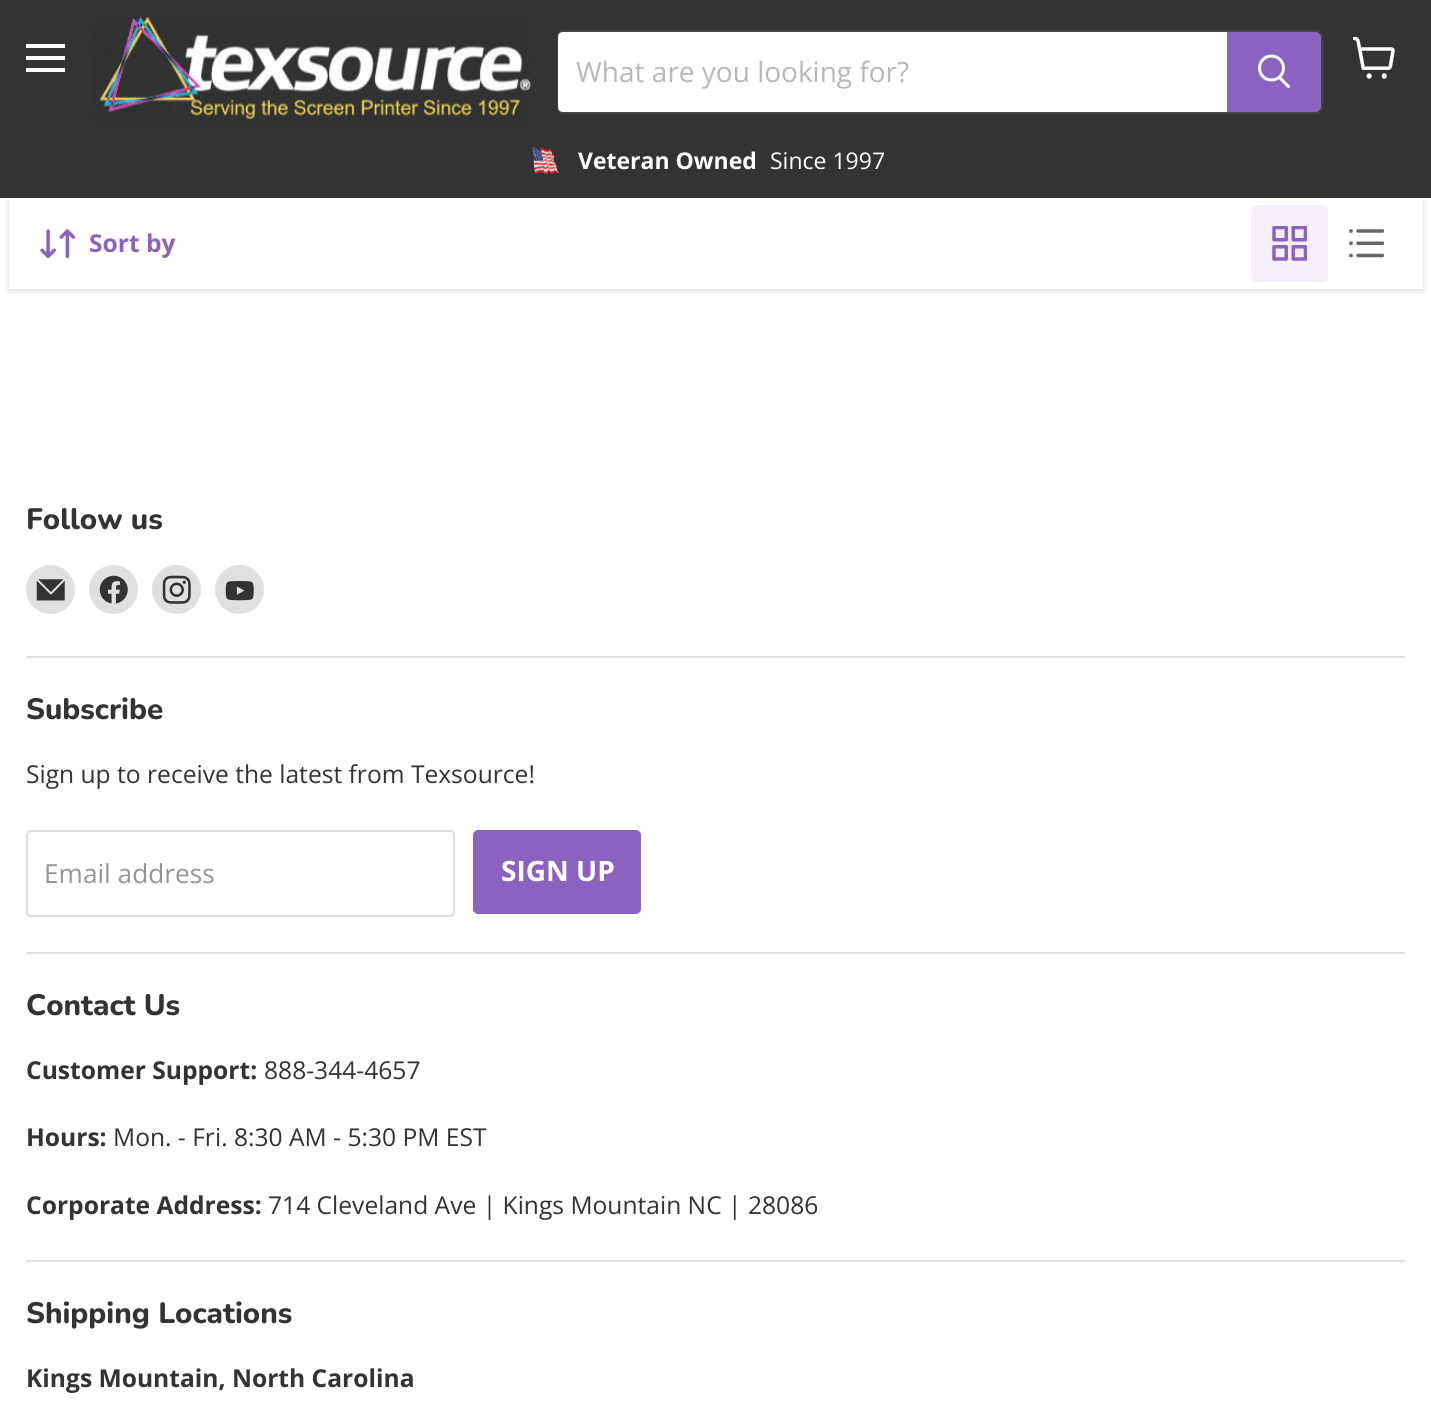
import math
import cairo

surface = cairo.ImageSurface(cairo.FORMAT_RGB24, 1431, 1425)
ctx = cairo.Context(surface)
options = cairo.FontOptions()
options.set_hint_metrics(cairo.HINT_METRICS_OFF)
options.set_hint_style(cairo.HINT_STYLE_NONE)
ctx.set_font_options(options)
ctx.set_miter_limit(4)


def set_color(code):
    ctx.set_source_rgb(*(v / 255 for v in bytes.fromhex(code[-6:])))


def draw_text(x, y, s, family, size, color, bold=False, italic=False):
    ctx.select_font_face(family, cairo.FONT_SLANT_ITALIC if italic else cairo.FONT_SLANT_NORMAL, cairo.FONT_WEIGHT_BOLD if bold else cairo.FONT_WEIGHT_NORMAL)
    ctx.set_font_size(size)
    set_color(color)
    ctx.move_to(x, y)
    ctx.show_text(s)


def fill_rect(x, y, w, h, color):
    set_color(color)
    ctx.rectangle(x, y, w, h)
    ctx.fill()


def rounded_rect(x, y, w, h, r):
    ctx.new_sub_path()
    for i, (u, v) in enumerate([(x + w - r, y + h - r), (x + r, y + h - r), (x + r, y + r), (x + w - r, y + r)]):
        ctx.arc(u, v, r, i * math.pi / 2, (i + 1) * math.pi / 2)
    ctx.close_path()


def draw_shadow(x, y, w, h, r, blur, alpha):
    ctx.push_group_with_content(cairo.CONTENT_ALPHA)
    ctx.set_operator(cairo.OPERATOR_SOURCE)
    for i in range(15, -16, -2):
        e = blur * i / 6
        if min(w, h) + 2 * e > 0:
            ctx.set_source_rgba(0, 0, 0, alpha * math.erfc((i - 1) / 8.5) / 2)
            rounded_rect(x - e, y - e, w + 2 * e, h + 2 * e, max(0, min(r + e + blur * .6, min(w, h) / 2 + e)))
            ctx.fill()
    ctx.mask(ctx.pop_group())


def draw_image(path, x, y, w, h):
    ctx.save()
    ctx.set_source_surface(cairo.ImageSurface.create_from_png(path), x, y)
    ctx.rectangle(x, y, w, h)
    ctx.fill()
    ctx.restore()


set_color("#ffffff")
ctx.paint()
set_color("#808080")
draw_shadow(9, 200, 1414, 91, 0, 3.5, 0.25)
fill_rect(0, 0, 1431, 198, "#333333")
fill_rect(26, 44, 39, 4, "#ffffff")
fill_rect(26, 56, 39, 4, "#ffffff")
fill_rect(26, 68, 39, 4, "#ffffff")
draw_image("assets/img1.png", 93, 17, 438, 110)
rounded_rect(558, 31, 764, 82, 6)
ctx.set_source_rgba(0.502, 0.502, 0.502, 0.2)
ctx.stroke()
set_color("#ffffff")
ctx.new_path()
ctx.move_to(563, 32)
ctx.line_to(1227, 32)
ctx.line_to(1227, 112)
ctx.line_to(563, 112)
ctx.curve_to(560, 112, 558, 110, 558, 107)
ctx.line_to(558, 37)
ctx.curve_to(558, 34, 560, 32, 563, 32)
ctx.close_path()
ctx.fill()
draw_text(576, 82, "What are you looking for?", "Open Sans", 28, "#b8b8b8")
set_color("#8c62c1")
ctx.new_path()
ctx.move_to(1228, 33)
ctx.line_to(1316, 33)
ctx.curve_to(1318, 33, 1320, 35, 1320, 37)
ctx.line_to(1320, 107)
ctx.curve_to(1320, 109, 1318, 111, 1316, 111)
ctx.line_to(1228, 111)
ctx.close_path()
ctx.fill_preserve()
ctx.stroke()
ctx.new_path()
ctx.move_to(1288.5, 86.5)
ctx.line_to(1280, 78)
set_color("#ffffff")
ctx.set_line_width(3)
ctx.set_line_cap(cairo.LINE_CAP_ROUND)
ctx.stroke()
ctx.arc(1271.5, 68, 12, 0, 2 * math.pi)
ctx.set_line_cap(cairo.LINE_CAP_BUTT)
ctx.stroke()
draw_image("assets/img2.png", 532, 146, 28, 29)
draw_text(578, 169, "Veteran Owned", "Open Sans", 23, "#ffffff", bold=True)
draw_text(770, 169, "Since 1997", "Open Sans", 23, "#ffffff")
draw_image("assets/img3.png", 1353, 37, 42, 42)
fill_rect(9, 198, 1414, 91, "#ffffff")
draw_image("assets/img4.png", 40, 229, 35, 30)
draw_text(89, 252, "Sort by", "Open Sans", 24.6, "#8c62c1", bold=True)
set_color("#f4eff9")
rounded_rect(1251, 205, 77, 77, 5)
ctx.fill()
draw_image("assets/img5.png", 1272, 226, 35, 35)
draw_image("assets/img6.png", 1349, 229, 35, 29)
fill_rect(26, 656, 1379, 2, "#e0e0e0")
draw_text(26, 529, "Follow us", "Nunito ExtraBold", 29.5, "#333333")
set_color("#e0e0e0")
ctx.new_path()
ctx.arc(50.5, 589.5, 24.5, 0, 2 * math.pi)
ctx.fill()
draw_image("assets/img7.png", 36, 579, 29, 22)
ctx.arc(113.5, 589.5, 24.5, 0, 2 * math.pi)
ctx.fill()
draw_image("assets/img8.png", 99, 575, 29, 29)
ctx.arc(176.5, 589.5, 24.5, 0, 2 * math.pi)
ctx.fill()
draw_image("assets/img9.png", 162, 575, 29, 29)
ctx.arc(239.5, 589.5, 24.5, 0, 2 * math.pi)
ctx.fill()
draw_image("assets/img10.png", 225, 581, 29, 20)
fill_rect(26, 952, 1379, 2, "#e0e0e0")
draw_text(26, 719, "Subscribe", "Nunito ExtraBold", 29.5, "#333333")
draw_text(26, 783, "Sign up to receive the latest from Texsource!", "Open Sans", 24.6, "#333333")
rounded_rect(27, 831, 427, 85, 4)
set_color("#dedede")
ctx.set_line_width(2)
ctx.stroke()
draw_text(44, 883, "Email address", "Open Sans", 26.25, "#949494")
set_color("#8c62c1")
rounded_rect(474, 831, 166, 82, 4)
ctx.fill_preserve()
ctx.stroke()
draw_text(501, 881, "SIGN UP", "Open Sans", 28, "#ffffff", bold=True)
fill_rect(26, 1260, 1379, 2, "#e0e0e0")
draw_text(26, 1015, "Contact Us", "Nunito ExtraBold", 29.5, "#333333")
draw_text(26, 1079, "Customer Support:", "Open Sans", 24.6, "#333333", bold=True)
draw_text(264, 1079, "888-344-4657", "Open Sans", 24.6, "#333333")
draw_text(26, 1146, "Hours:", "Open Sans", 24.6, "#333333", bold=True)
draw_text(113, 1146, "Mon. - Fri. 8:30 AM - 5:30 PM EST", "Open Sans", 24.6, "#333333")
draw_text(26, 1214, "Corporate Address:", "Open Sans", 24.6, "#333333", bold=True)
draw_text(268, 1214, "714 Cleveland Ave | Kings Mountain NC | 28086", "Open Sans", 24.6, "#333333")
draw_text(26, 1323, "Shipping Locations", "Nunito ExtraBold", 29.5, "#333333")
draw_text(26, 1387, "Kings Mountain, North Carolina", "Open Sans", 24.6, "#333333", bold=True)
surface.write_to_png("output.png")
